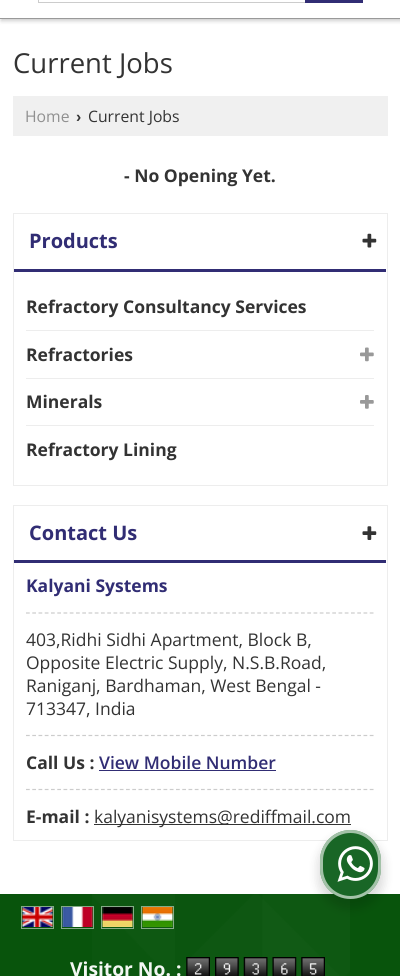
import math
import cairo

surface = cairo.ImageSurface(cairo.FORMAT_RGB24, 400, 976)
ctx = cairo.Context(surface)
options = cairo.FontOptions()
options.set_hint_metrics(cairo.HINT_METRICS_OFF)
options.set_hint_style(cairo.HINT_STYLE_NONE)
ctx.set_font_options(options)
ctx.set_miter_limit(4)


def set_color(code):
    ctx.set_source_rgb(*(v / 255 for v in bytes.fromhex(code[-6:])))


def draw_text(x, y, s, family, size, color, bold=False, italic=False):
    ctx.select_font_face(family, cairo.FONT_SLANT_ITALIC if italic else cairo.FONT_SLANT_NORMAL, cairo.FONT_WEIGHT_BOLD if bold else cairo.FONT_WEIGHT_NORMAL)
    ctx.set_font_size(size)
    set_color(color)
    ctx.move_to(x, y)
    ctx.show_text(s)


def fill_rect(x, y, w, h, color):
    set_color(color)
    ctx.rectangle(x, y, w, h)
    ctx.fill()


def rounded_rect(x, y, w, h, r):
    ctx.new_sub_path()
    for i, (u, v) in enumerate([(x + w - r, y + h - r), (x + r, y + h - r), (x + r, y + r), (x + w - r, y + r)]):
        ctx.arc(u, v, r, i * math.pi / 2, (i + 1) * math.pi / 2)
    ctx.close_path()


def draw_shadow(x, y, w, h, r, blur, alpha):
    ctx.push_group_with_content(cairo.CONTENT_ALPHA)
    ctx.set_operator(cairo.OPERATOR_SOURCE)
    for i in range(15, -16, -2):
        e = blur * i / 6
        if min(w, h) + 2 * e > 0:
            ctx.set_source_rgba(0, 0, 0, alpha * math.erfc((i - 1) / 8.5) / 2)
            rounded_rect(x - e, y - e, w + 2 * e, h + 2 * e, max(0, min(r + e + blur * .6, min(w, h) / 2 + e)))
            ctx.fill()
    ctx.mask(ctx.pop_group())


def draw_image(path, x, y, w, h):
    ctx.save()
    ctx.set_source_surface(cairo.ImageSurface.create_from_png(path), x, y)
    ctx.rectangle(x, y, w, h)
    ctx.fill()
    ctx.restore()


set_color("#ffffff")
ctx.paint()
set_color("#000000")
draw_shadow(1, -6, 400, 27, 0, 2, 0.2)
fill_rect(0, 0, 400, 18, "#ffffff")
fill_rect(0, 18, 400, 1, "#999999")
ctx.rectangle(38.5, -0.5, 277, 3)
set_color("#cccccc")
ctx.set_line_width(1)
ctx.stroke()
fill_rect(305, 0, 58, 3, "#312d74")
draw_text(13, 73, "Current Jobs", "Open Sans", 27.5, "#333333")
fill_rect(13, 96, 375, 40, "#f0f0f0")
draw_text(25, 122, "Home", "Open Sans", 15.75, "#909090")
draw_text(76, 122, "›", "Liberation Sans", 15.75, "#333333", bold=True)
draw_text(88, 122, "Current Jobs", "Open Sans", 15.75, "#333333")
draw_text(124, 182, "- No Opening Yet.", "Open Sans", 17.5, "#333333", bold=True)
ctx.rectangle(13.5, 213.5, 374, 272)
set_color("#ededed")
ctx.stroke()
fill_rect(14, 269, 372, 3, "#312d74")
draw_text(29, 248, "Products", "Open Sans", 20, "#312d74", bold=True)
draw_image("assets/img1.png", 362, 233, 15, 15)
fill_rect(26, 330, 348, 1, "#ededed")
draw_text(26, 313, "Refractory Consultancy Services", "Open Sans", 17.5, "#333333", bold=True)
fill_rect(26, 378, 348, 1, "#ededed")
draw_text(26, 361, "Refractories", "Open Sans", 17.5, "#333333", bold=True)
draw_image("assets/img2.png", 360, 347, 14, 15)
fill_rect(26, 425, 348, 1, "#ededed")
draw_text(26, 408, "Minerals", "Open Sans", 17.5, "#333333", bold=True)
draw_image("assets/img3.png", 360, 395, 14, 14)
draw_text(26, 456, "Refractory Lining", "Open Sans", 17.5, "#333333", bold=True)
ctx.rectangle(13.5, 505.5, 374, 335)
set_color("#ededed")
ctx.stroke()
fill_rect(14, 560, 372, 3, "#312d74")
draw_text(29, 540, "Contact Us", "Open Sans", 20, "#312d74", bold=True)
draw_image("assets/img4.png", 362, 526, 15, 14)
draw_text(26, 592, "Kalyani Systems", "Open Sans", 17.5, "#312d74", bold=True)
ctx.new_path()
ctx.move_to(26, 613)
ctx.line_to(374, 613)
set_color("#cccccc")
ctx.set_line_width(1.2)
ctx.set_dash([3.75, 2.5])
ctx.stroke()
draw_text(26, 646, "403,Ridhi Sidhi Apartment, Block B,", "Open Sans", 17.5, "#333333")
draw_text(26, 669, "Opposite Electric Supply, N.S.B.Road,", "Open Sans", 17.5, "#333333")
draw_text(26, 692, "Raniganj, Bardhaman, West Bengal -", "Open Sans", 17.5, "#333333")
draw_text(26, 715, "713347, India", "Open Sans", 17.5, "#333333")
ctx.new_path()
ctx.move_to(26, 735.5)
ctx.line_to(374, 735.5)
set_color("#cccccc")
ctx.stroke()
draw_text(26, 769, "Call Us :", "Open Sans", 17.5, "#333333", bold=True)
draw_text(99, 769, "View Mobile Number", "Open Sans SemiBold", 17.5, "#312d74")
fill_rect(99, 770, 177, 1, "#312d74")
ctx.new_path()
ctx.move_to(26, 789.5)
ctx.line_to(374, 789.5)
set_color("#cccccc")
ctx.stroke()
draw_text(26, 823, "E-mail :", "Open Sans", 17.5, "#333333", bold=True)
fill_rect(94, 824, 257, 1, "#333333")
draw_text(94, 823, "kalyanisystems@rediffmail.com", "Open Sans", 17.5, "#333333")
fill_rect(0, 894, 400, 82, "#08540c")
draw_image("assets/img5.png", 92, 894, 258, 82)
ctx.rectangle(21.5, 906.5, 32, 22)
set_color("#84aa86")
ctx.set_line_width(1)
ctx.set_dash([])
ctx.stroke()
ctx.rectangle(61.5, 906.5, 32, 22)
ctx.set_source_rgba(1, 1, 1, 0.5)
ctx.stroke()
ctx.rectangle(101.5, 906.5, 32, 22)
ctx.stroke()
ctx.rectangle(141.5, 906.5, 32, 22)
set_color("#86ac88")
ctx.stroke()
draw_image("assets/img6.png", 22, 907, 31, 20)
draw_image("assets/img7.png", 62, 907, 31, 20)
draw_image("assets/img8.png", 102, 907, 31, 20)
draw_image("assets/img9.png", 142, 907, 31, 20)
draw_text(70, 976, "Visitor No. :", "Open Sans", 19.25, "#f3f7f3", bold=True)
draw_image("assets/img10.png", 186, 957, 24, 19)
draw_image("assets/img11.png", 215, 957, 24, 19)
draw_image("assets/img12.png", 243, 957, 25, 19)
draw_image("assets/img13.png", 272, 957, 25, 19)
draw_image("assets/img14.png", 301, 957, 24, 19)
set_color("#000000")
draw_shadow(318, 835, 66, 74, 33, 5, 0.14)
set_color("#196626")
rounded_rect(320, 830, 61, 69, 30.5)
ctx.fill()
rounded_rect(321.5, 831.5, 58, 66, 29)
ctx.set_source_rgba(1, 1, 1, 0.6)
ctx.set_line_width(3)
ctx.stroke()
draw_image("assets/img15.png", 337, 846, 36, 36)
surface.write_to_png("output.png")
